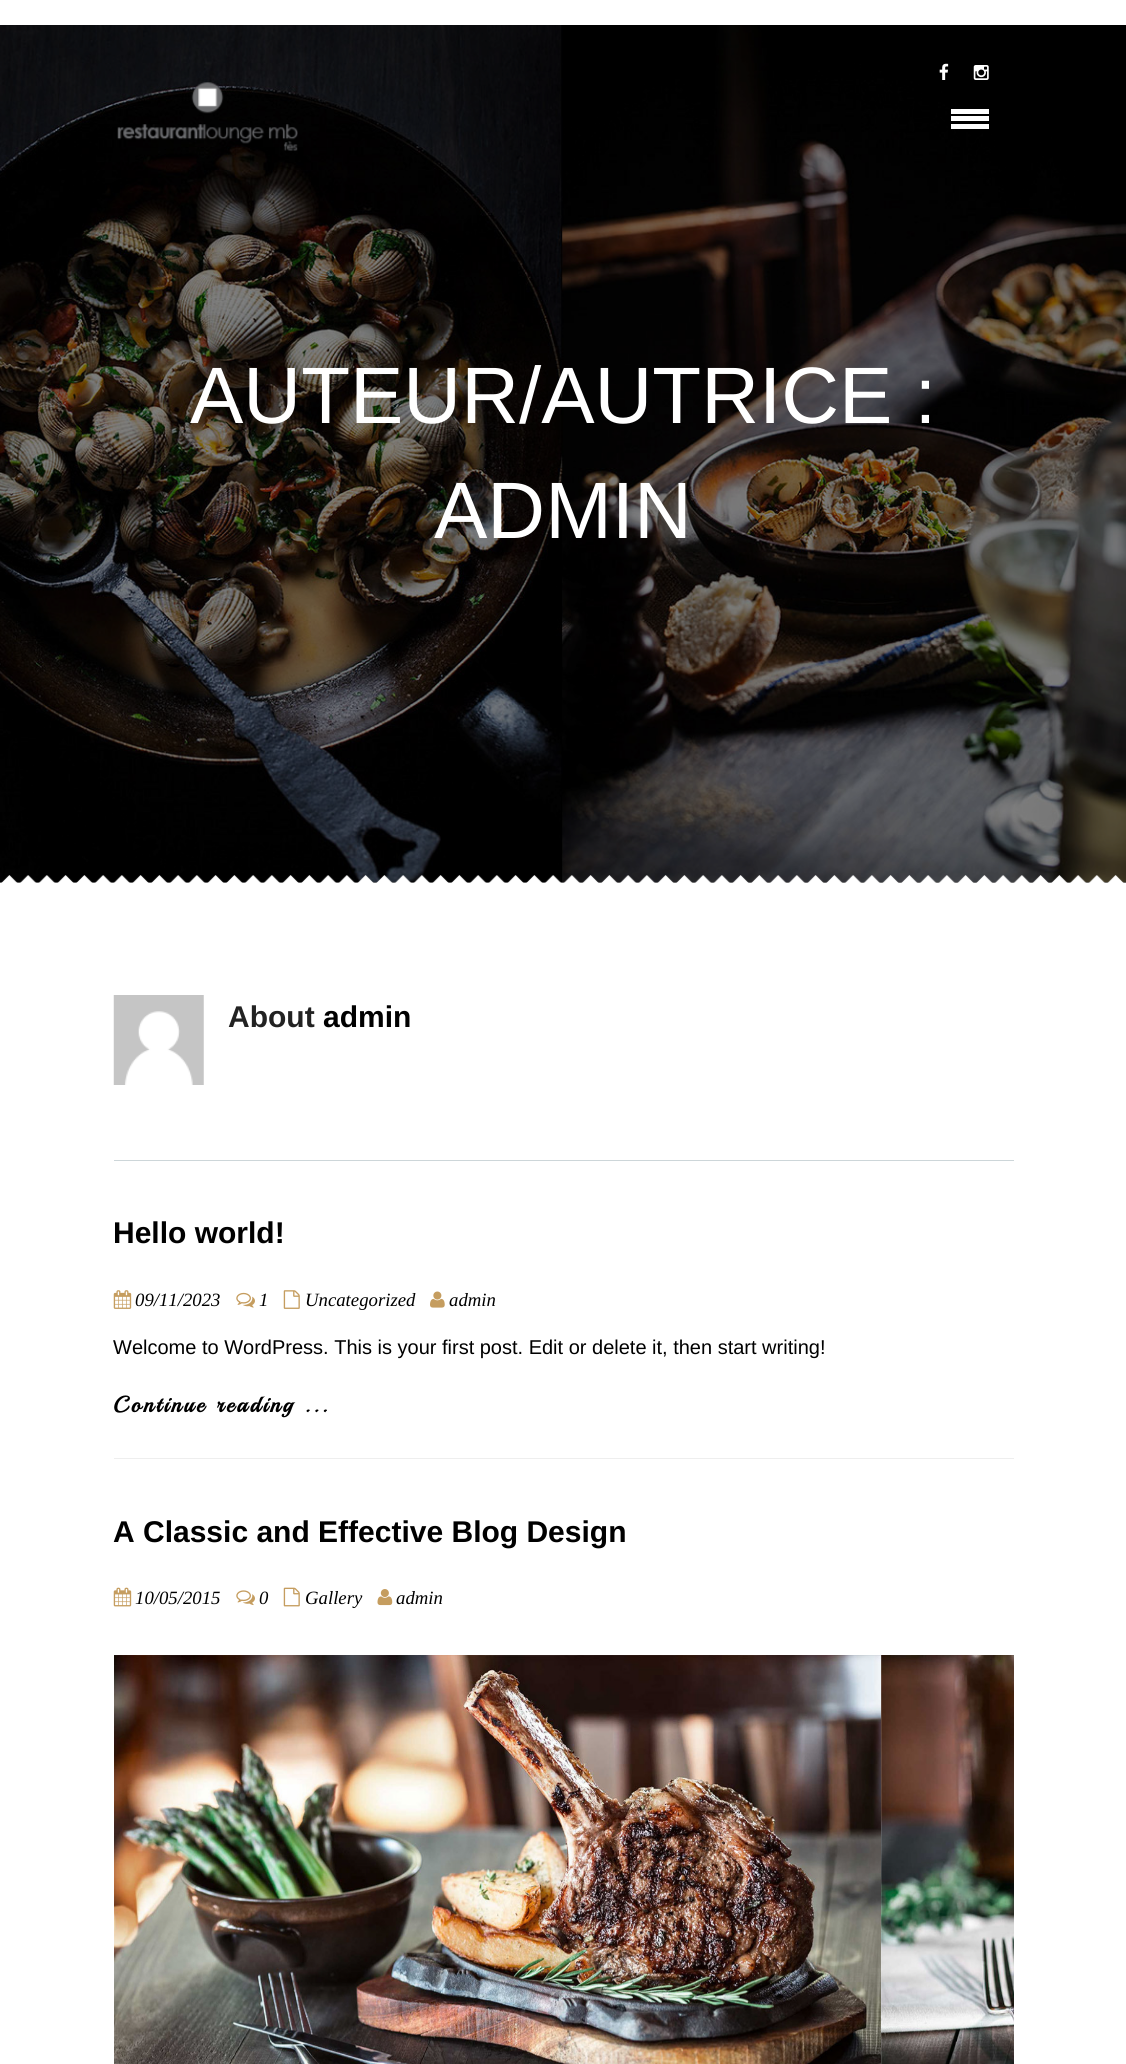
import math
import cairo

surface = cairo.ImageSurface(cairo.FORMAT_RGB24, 1126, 2064)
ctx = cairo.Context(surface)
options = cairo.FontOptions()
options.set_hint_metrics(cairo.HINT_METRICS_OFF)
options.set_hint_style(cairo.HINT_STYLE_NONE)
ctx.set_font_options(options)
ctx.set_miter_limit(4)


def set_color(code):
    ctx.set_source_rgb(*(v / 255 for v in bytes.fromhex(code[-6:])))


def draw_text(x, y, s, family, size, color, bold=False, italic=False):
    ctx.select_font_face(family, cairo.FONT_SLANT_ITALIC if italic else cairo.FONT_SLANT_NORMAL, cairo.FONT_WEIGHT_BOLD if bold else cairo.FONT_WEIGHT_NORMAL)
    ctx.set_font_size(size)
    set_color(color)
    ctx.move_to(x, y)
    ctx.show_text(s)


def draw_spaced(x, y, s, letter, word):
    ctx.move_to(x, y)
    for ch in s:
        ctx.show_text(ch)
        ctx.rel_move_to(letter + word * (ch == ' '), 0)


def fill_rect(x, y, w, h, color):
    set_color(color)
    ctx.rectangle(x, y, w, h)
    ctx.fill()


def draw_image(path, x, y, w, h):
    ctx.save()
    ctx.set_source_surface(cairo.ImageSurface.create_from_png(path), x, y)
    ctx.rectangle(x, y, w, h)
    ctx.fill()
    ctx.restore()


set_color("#ffffff")
ctx.paint()
fill_rect(0, 882, 1126, 1, "#808080")
draw_image("assets/img4.png", 0, 25, 1126, 858)
draw_image("assets/img1.png", 939, 63, 10, 17)
draw_image("assets/img2.png", 973, 65, 16, 15)
draw_image("assets/img3.png", 117, 82, 181, 69)
fill_rect(951, 109, 38, 5, "#ffffff")
fill_rect(951, 116, 38, 5, "#ffffff")
fill_rect(951, 124, 38, 5, "#ffffff")
draw_text(190, 423, "AUTEUR/AUTRICE :", "Liberation Sans", 80, "#ffffff")
draw_text(434, 538, "ADMIN", "Liberation Sans", 80, "#ffffff")
draw_image("assets/img5.png", 1, 875, 1123, 8)
fill_rect(114, 1160, 900, 1, "#cdd6d9")
draw_image("assets/img6.png", 113, 995, 91, 90)
draw_text(228, 1027, "About", "Liberation Sans", 30, "#222222", bold=True)
draw_text(323, 1027, "admin", "Liberation Sans", 30, "#000000", bold=True)
fill_rect(114, 1458, 900, 1, "#eeeeee")
draw_text(113, 1243, "Hello world!", "Liberation Sans", 30, "#000000", bold=True)
draw_image("assets/img7.png", 113, 1290, 19, 19)
draw_text(135, 1306, "09/11/2023", "Liberation Serif", 18.75, "#000000", italic=True)
draw_image("assets/img8.png", 236, 1292, 19, 16)
draw_text(259, 1306, "1", "Liberation Serif", 18.75, "#000000", italic=True)
draw_image("assets/img9.png", 283, 1290, 17, 19)
draw_text(305, 1306, "Uncategorized", "Liberation Serif", 18.75, "#000000", italic=True)
draw_image("assets/img10.png", 430, 1291, 15, 17)
draw_text(449, 1306, "admin", "Liberation Serif", 18.75, "#000000", italic=True)
draw_text(113, 1354, "Welcome to WordPress. This is your first post. Edit or delete it, then start writing!", "Liberation Sans", 20, "#000000")
ctx.select_font_face("Playball", cairo.FONT_SLANT_NORMAL, cairo.FONT_WEIGHT_BOLD)
ctx.set_font_size(22.5)
draw_spaced(113, 1412, "Continue reading ...", 2.5, 0)
draw_text(113, 1542, "A Classic and Effective Blog Design", "Liberation Sans", 30, "#000000", bold=True)
draw_image("assets/img11.png", 113, 1587, 19, 20)
draw_text(135, 1604, "10/05/2015", "Liberation Serif", 18.75, "#000000", italic=True)
draw_image("assets/img12.png", 236, 1590, 19, 16)
draw_text(259, 1604, "0", "Liberation Serif", 18.75, "#000000", italic=True)
draw_image("assets/img13.png", 283, 1587, 17, 20)
draw_text(305, 1604, "Gallery", "Liberation Serif", 18.75, "#000000", italic=True)
draw_image("assets/img14.png", 377, 1589, 16, 17)
draw_text(396, 1604, "admin", "Liberation Serif", 18.75, "#000000", italic=True)
draw_image("assets/img15.png", 114, 1655, 768, 409)
draw_image("assets/img16.png", 881, 1655, 133, 409)
surface.write_to_png("output.png")
